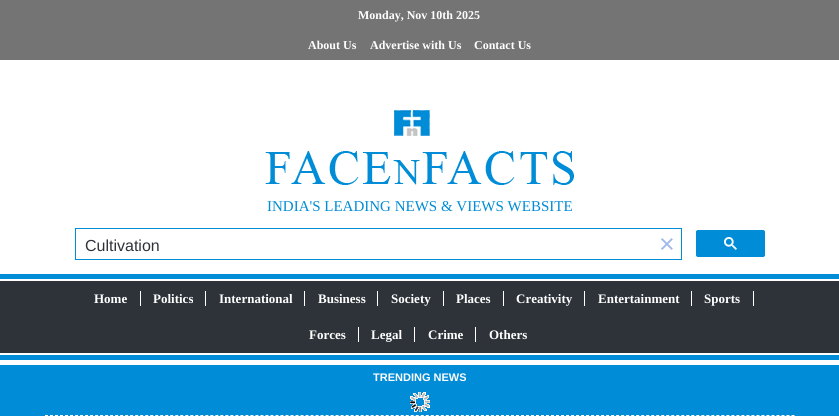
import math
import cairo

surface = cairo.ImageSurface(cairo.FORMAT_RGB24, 839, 416)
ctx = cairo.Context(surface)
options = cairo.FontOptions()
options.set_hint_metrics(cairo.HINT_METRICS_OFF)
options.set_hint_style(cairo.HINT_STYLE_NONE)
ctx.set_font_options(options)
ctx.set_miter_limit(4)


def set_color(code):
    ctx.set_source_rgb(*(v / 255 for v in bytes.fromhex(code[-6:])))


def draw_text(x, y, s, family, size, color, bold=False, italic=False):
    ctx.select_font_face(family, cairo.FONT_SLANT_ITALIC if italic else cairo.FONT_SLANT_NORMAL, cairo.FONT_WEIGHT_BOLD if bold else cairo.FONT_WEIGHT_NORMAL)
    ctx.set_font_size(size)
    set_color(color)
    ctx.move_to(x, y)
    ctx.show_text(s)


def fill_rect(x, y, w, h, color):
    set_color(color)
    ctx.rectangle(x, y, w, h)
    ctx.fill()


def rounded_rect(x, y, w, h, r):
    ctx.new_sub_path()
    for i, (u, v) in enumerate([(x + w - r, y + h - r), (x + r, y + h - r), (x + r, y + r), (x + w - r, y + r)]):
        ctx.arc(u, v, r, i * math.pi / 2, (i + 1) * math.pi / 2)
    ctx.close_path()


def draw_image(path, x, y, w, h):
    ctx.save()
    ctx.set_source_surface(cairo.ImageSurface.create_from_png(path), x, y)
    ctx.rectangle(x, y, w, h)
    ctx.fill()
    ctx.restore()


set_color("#ffffff")
ctx.paint()
fill_rect(0, 0, 839, 60, "#747474")
draw_text(358, 19, "Monday, Nov 10th 2025", "Liberation Serif", 12, "#ffffff", bold=True)
draw_text(308, 49, "About Us", "Liberation Serif", 12, "#ffffff", bold=True)
draw_text(370, 49, "Advertise with Us", "Liberation Serif", 12, "#ffffff", bold=True)
draw_text(474, 49, "Contact Us", "Liberation Serif", 12, "#ffffff", bold=True)
draw_image("assets/img1.png", 265, 110, 309, 75)
draw_text(267, 211, "INDIA'S LEADING NEWS & VIEWS WEBSITE", "Liberation Serif", 15, "#008cd6")
ctx.rectangle(75.5, 228.5, 606, 31)
ctx.set_line_width(1)
ctx.stroke()
draw_text(85, 251, "Cultivation", "Liberation Sans", 16, "#2e3339")
draw_text(659, 253, "×", "Liberation Sans", 27, "#a1b9ed")
set_color("#008cd6")
rounded_rect(696.5, 230.5, 68, 26, 1.5)
ctx.fill_preserve()
ctx.stroke()
draw_image("assets/img2.png", 724, 237, 13, 13)
fill_rect(0, 274, 839, 5, "#008cd6")
fill_rect(0, 355, 839, 5, "#008cd6")
fill_rect(0, 281, 839, 72, "#2e3339")
draw_text(94, 303, "Home", "Liberation Serif", 13, "#ffffff", bold=True)
fill_rect(140, 291, 1, 15, "#ffffff")
draw_text(153, 303, "Politics", "Liberation Serif", 13, "#ffffff", bold=True)
fill_rect(205, 291, 1, 15, "#ffffff")
draw_text(219, 303, "International", "Liberation Serif", 13, "#ffffff", bold=True)
fill_rect(304, 291, 1, 15, "#ffffff")
draw_text(318, 303, "Business", "Liberation Serif", 13, "#ffffff", bold=True)
fill_rect(377, 291, 1, 15, "#ffffff")
draw_text(391, 303, "Society", "Liberation Serif", 13, "#ffffff", bold=True)
fill_rect(443, 291, 1, 15, "#ffffff")
draw_text(456, 303, "Places", "Liberation Serif", 13, "#ffffff", bold=True)
fill_rect(503, 291, 1, 15, "#ffffff")
draw_text(516, 303, "Creativity", "Liberation Serif", 13, "#ffffff", bold=True)
fill_rect(584, 291, 1, 15, "#ffffff")
draw_text(598, 303, "Entertainment", "Liberation Serif", 13, "#ffffff", bold=True)
fill_rect(691, 291, 1, 15, "#ffffff")
draw_text(704, 303, "Sports", "Liberation Serif", 13, "#ffffff", bold=True)
fill_rect(753, 291, 1, 15, "#ffffff")
draw_text(309, 339, "Forces", "Liberation Serif", 13, "#ffffff", bold=True)
fill_rect(358, 327, 1, 15, "#ffffff")
draw_text(371, 339, "Legal", "Liberation Serif", 13, "#ffffff", bold=True)
fill_rect(414, 327, 1, 15, "#ffffff")
draw_text(428, 339, "Crime", "Liberation Serif", 13, "#ffffff", bold=True)
fill_rect(475, 327, 1, 15, "#ffffff")
draw_text(489, 339, "Others", "Liberation Serif", 13, "#ffffff", bold=True)
fill_rect(0, 365, 839, 51, "#008cd6")
draw_text(373, 381, "TRENDING NEWS", "Liberation Sans", 11, "#ffffff", bold=True)
draw_image("assets/img3.png", 410, 392, 20, 20)
ctx.new_path()
ctx.move_to(45, 415.5)
ctx.line_to(795, 415.5)
ctx.set_dash([3, 2.01])
ctx.stroke()
surface.write_to_png("output.png")
